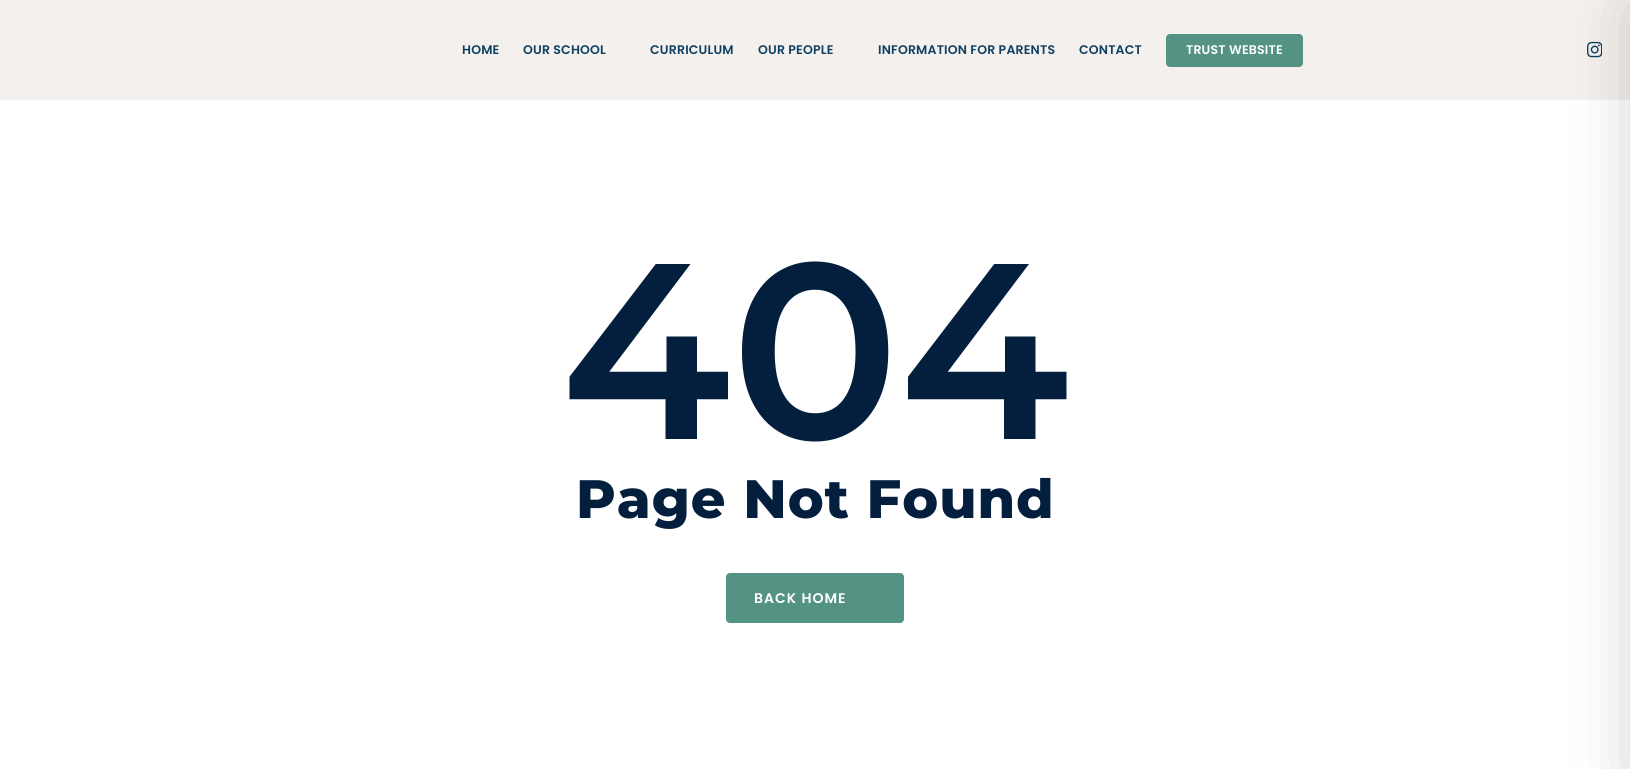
import math
import cairo

surface = cairo.ImageSurface(cairo.FORMAT_RGB24, 1630, 769)
ctx = cairo.Context(surface)
options = cairo.FontOptions()
options.set_hint_metrics(cairo.HINT_METRICS_OFF)
options.set_hint_style(cairo.HINT_STYLE_NONE)
ctx.set_font_options(options)
ctx.set_miter_limit(4)


def set_color(code):
    ctx.set_source_rgb(*(v / 255 for v in bytes.fromhex(code[-6:])))


def draw_spaced(x, y, s, letter, word):
    ctx.move_to(x, y)
    for ch in s:
        ctx.show_text(ch)
        ctx.rel_move_to(letter + word * (ch == ' '), 0)


def fill_rect(x, y, w, h, color):
    set_color(color)
    ctx.rectangle(x, y, w, h)
    ctx.fill()


def rounded_rect(x, y, w, h, r):
    ctx.new_sub_path()
    for i, (u, v) in enumerate([(x + w - r, y + h - r), (x + r, y + h - r), (x + r, y + r), (x + w - r, y + r)]):
        ctx.arc(u, v, r, i * math.pi / 2, (i + 1) * math.pi / 2)
    ctx.close_path()


def draw_shadow(x, y, w, h, r, blur, alpha):
    ctx.push_group_with_content(cairo.CONTENT_ALPHA)
    ctx.set_operator(cairo.OPERATOR_SOURCE)
    for i in range(15, -16, -2):
        e = blur * i / 6
        if min(w, h) + 2 * e > 0:
            ctx.set_source_rgba(0, 0, 0, alpha * math.erfc((i - 1) / 8.5) / 2)
            rounded_rect(x - e, y - e, w + 2 * e, h + 2 * e, max(0, min(r + e + blur * .6, min(w, h) / 2 + e)))
            ctx.fill()
    ctx.mask(ctx.pop_group())


def draw_image(path, x, y, w, h):
    ctx.save()
    ctx.set_source_surface(cairo.ImageSurface.create_from_png(path), x, y)
    ctx.rectangle(x, y, w, h)
    ctx.fill()
    ctx.restore()


set_color("#ffffff")
ctx.paint()
fill_rect(0, 0, 1630, 100, "#f4f0ed")
ctx.select_font_face("Poppins SemiBold")
ctx.set_font_size(12.5)
set_color("#0e4061")
draw_spaced(462, 54, "HOME", 0.2, 0)
draw_spaced(523, 54, "OUR SCHOOL", 0.2, 0)
draw_spaced(650, 54, "CURRICULUM", 0.2, 0)
draw_spaced(758, 54, "OUR PEOPLE", 0.2, 0)
draw_spaced(878, 54, "INFORMATION FOR PARENTS", 0.2, 0)
draw_spaced(1079, 54, "CONTACT", 0.2, 0)
set_color("#549384")
rounded_rect(1166, 34, 137, 33, 4)
ctx.fill()
set_color("#ffffff")
draw_spaced(1186, 54, "TRUST WEBSITE", 0.2, 0)
draw_image("assets/img1.png", 1587, 41, 15, 17)
ctx.select_font_face("Montserrat SemiBold")
ctx.set_font_size(250)
set_color("#041f3d")
draw_spaced(561, 439, "404", 0.2, 0)
ctx.select_font_face("Montserrat ExtraBold")
ctx.set_font_size(54)
draw_spaced(576, 518, "Page Not Found", 1, 0)
set_color("#549384")
rounded_rect(726, 573, 178, 50, 4)
ctx.fill()
ctx.select_font_face("Poppins SemiBold")
ctx.set_font_size(14)
set_color("#ffffff")
draw_spaced(754, 603, "BACK HOME", 1, 0)
set_color("#000000")
draw_shadow(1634, 10, 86, 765, 0, 30, 0.2)
surface.write_to_png("output.png")
